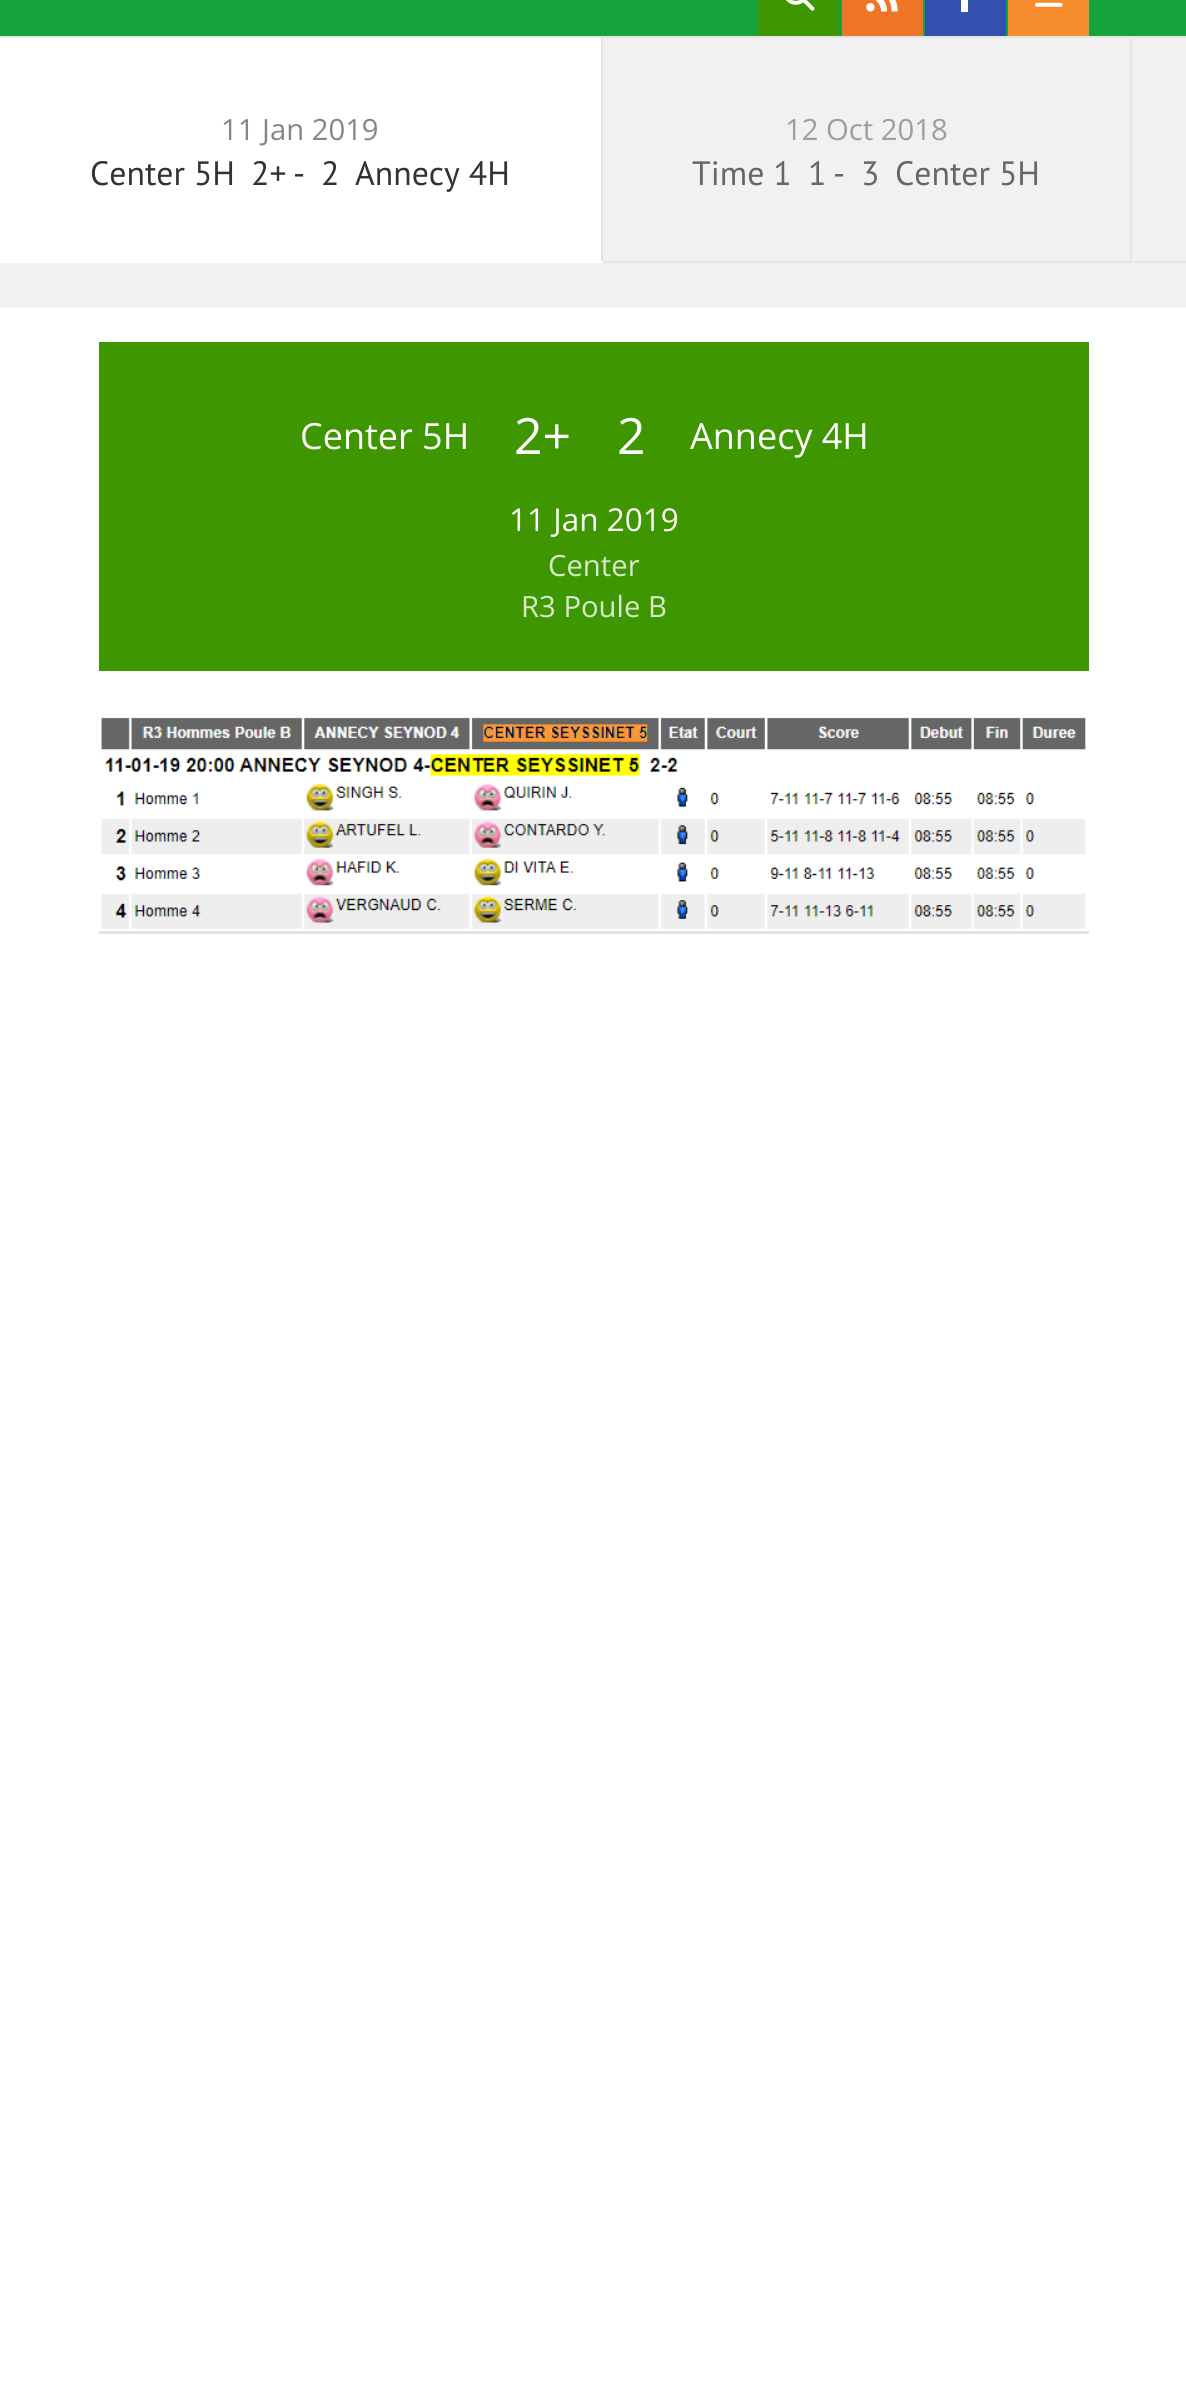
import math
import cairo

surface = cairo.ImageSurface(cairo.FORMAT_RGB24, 1186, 2382)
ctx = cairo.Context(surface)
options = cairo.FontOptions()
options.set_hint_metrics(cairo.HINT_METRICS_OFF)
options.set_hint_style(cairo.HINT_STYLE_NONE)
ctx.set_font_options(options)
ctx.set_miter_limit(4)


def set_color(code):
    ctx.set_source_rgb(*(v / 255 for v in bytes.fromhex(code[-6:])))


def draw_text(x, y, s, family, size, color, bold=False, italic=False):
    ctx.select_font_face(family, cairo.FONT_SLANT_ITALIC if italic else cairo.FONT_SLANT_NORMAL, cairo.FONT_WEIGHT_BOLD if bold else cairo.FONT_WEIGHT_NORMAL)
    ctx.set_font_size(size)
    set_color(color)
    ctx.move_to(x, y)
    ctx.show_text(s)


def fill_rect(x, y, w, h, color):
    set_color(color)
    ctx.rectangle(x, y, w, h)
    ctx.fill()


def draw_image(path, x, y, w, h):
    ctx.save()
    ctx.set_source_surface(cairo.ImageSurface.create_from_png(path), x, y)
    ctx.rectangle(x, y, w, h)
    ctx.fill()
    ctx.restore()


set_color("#ffffff")
ctx.paint()
fill_rect(0, 0, 1186, 36, "#16a33d")
fill_rect(0, 36, 1186, 2, "#e5e5e5")
fill_rect(758, 0, 81, 36, "#3e9600")
draw_image("assets/img1.png", 786, 0, 29, 11)
fill_rect(842, 0, 81, 36, "#ef7528")
draw_image("assets/img2.png", 866, 0, 32, 12)
fill_rect(925, 0, 81, 36, "#3350ae")
fill_rect(961, 0, 7, 12, "#ffffff")
fill_rect(1008, 0, 81, 36, "#f78c2e")
draw_image("assets/img3.png", 1035, 2, 28, 5)
fill_rect(0, 38, 1186, 270, "#f1f1f1")
fill_rect(601, 38, 2, 225, "#e5e5e5")
fill_rect(0, 261, 603, 2, "#ffffff")
fill_rect(0, 38, 601, 223, "#ffffff")
draw_text(221, 140, "11 Jan 2019", "Open Sans", 29.25, "#858585")
draw_text(90, 185, "Center 5H", "PT Sans", 33.75, "#333333")
draw_text(251, 185, "2+", "PT Sans", 33.75, "#333333")
draw_text(293, 185, "-", "PT Sans", 33.75, "#333333")
draw_text(321, 185, "2", "PT Sans", 33.75, "#333333")
draw_text(355, 185, "Annecy 4H", "PT Sans", 33.75, "#333333")
fill_rect(1130, 38, 2, 225, "#e5e5e5")
fill_rect(603, 261, 583, 2, "#e5e5e5")
draw_text(785, 140, "12 Oct 2018", "Open Sans", 29.25, "#9e9e9e")
draw_text(692, 185, "Time 1", "PT Sans", 33.75, "#666666")
draw_text(808, 185, "1", "PT Sans", 33.75, "#666666")
draw_text(833, 185, "-", "PT Sans", 33.75, "#666666")
draw_text(861, 185, "3", "PT Sans", 33.75, "#666666")
draw_text(895, 185, "Center 5H", "PT Sans", 33.75, "#666666")
fill_rect(99, 342, 990, 329, "#3e9600")
draw_text(300, 449, "Center 5H", "Open Sans", 36, "#ffffff")
draw_text(514, 454, "2+", "Open Sans", 50, "#ffffff")
draw_text(617, 454, "2", "Open Sans", 50, "#ffffff")
draw_text(690, 449, "Annecy 4H", "Open Sans", 36, "#ffffff")
draw_text(509, 531, "11 Jan 2019", "Open Sans", 31.5, "#ffffff")
draw_text(548, 576, "Center", "Open Sans", 29.25, "#d8eacc")
draw_text(521, 617, "R3 Poule B", "Open Sans", 29.25, "#d8eacc")
draw_image("assets/img4.png", 99, 717, 990, 217)
surface.write_to_png("output.png")
